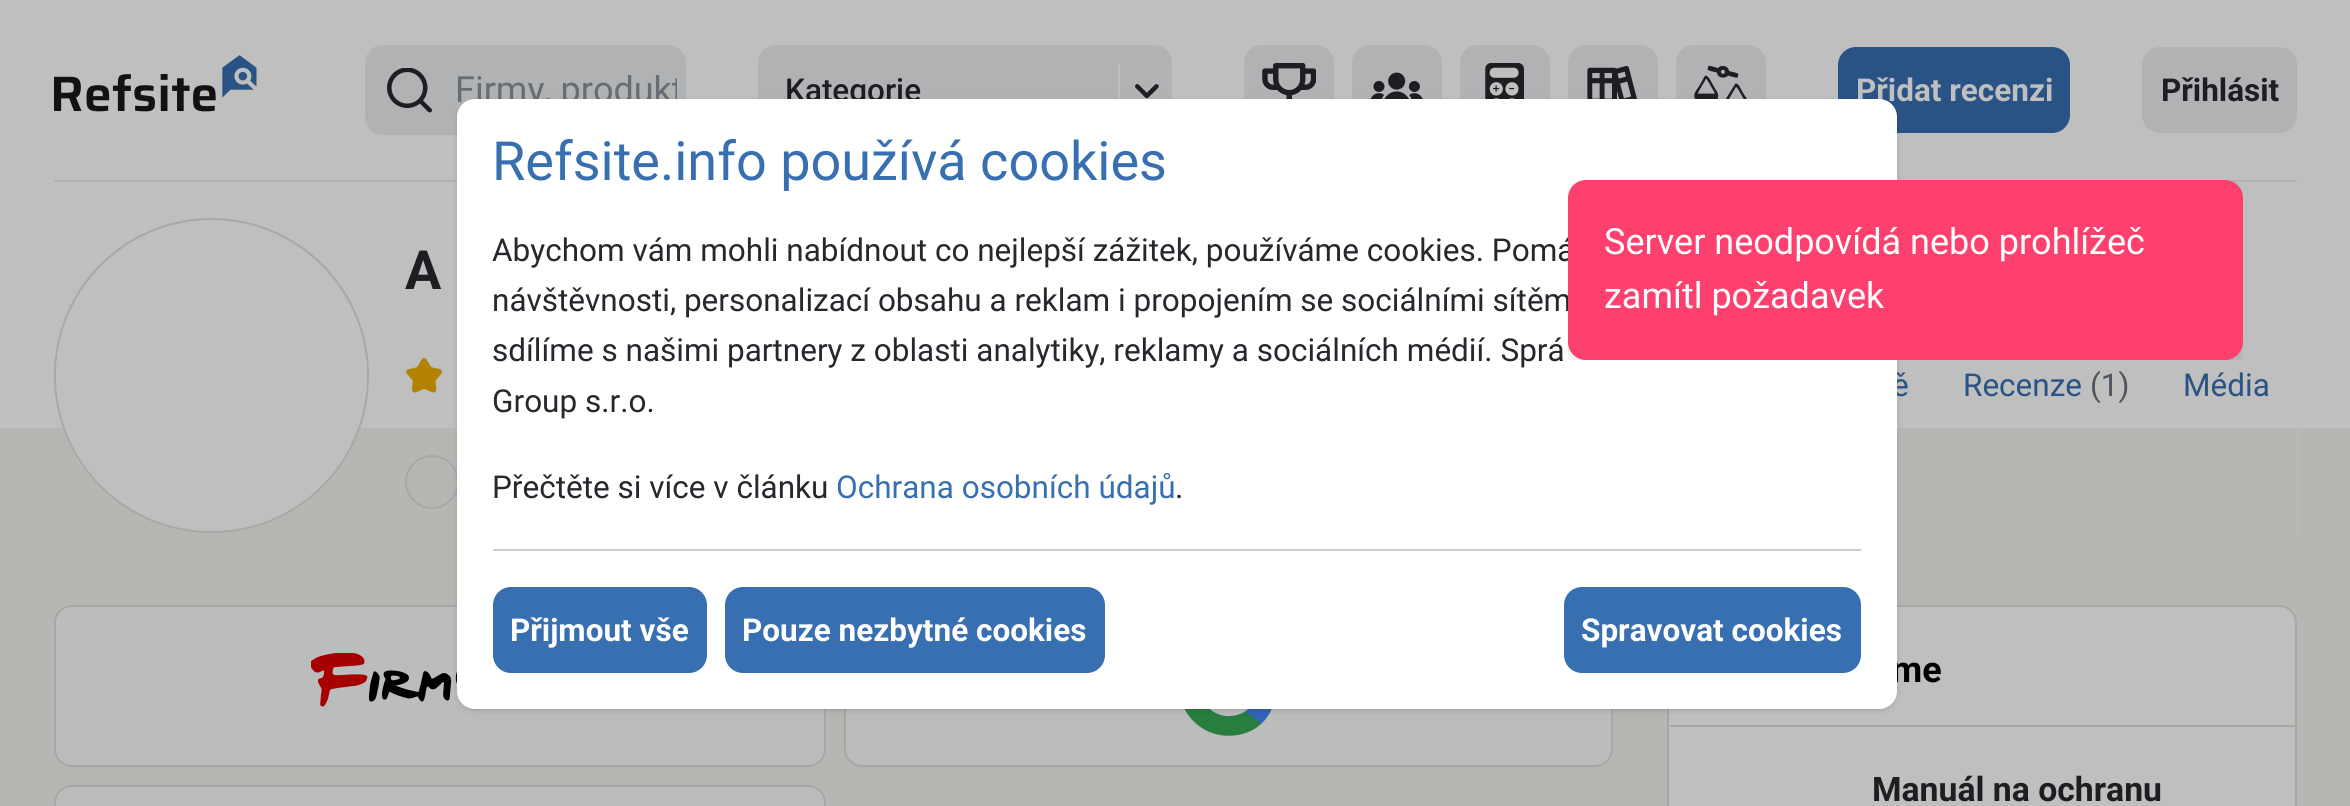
import math
import cairo

surface = cairo.ImageSurface(cairo.FORMAT_RGB24, 2350, 806)
ctx = cairo.Context(surface)
options = cairo.FontOptions()
options.set_hint_metrics(cairo.HINT_METRICS_OFF)
options.set_hint_style(cairo.HINT_STYLE_NONE)
ctx.set_font_options(options)
ctx.set_miter_limit(4)


def set_color(code):
    ctx.set_source_rgb(*(v / 255 for v in bytes.fromhex(code[-6:])))


def draw_text(x, y, s, family, size, color, bold=False, italic=False):
    ctx.select_font_face(family, cairo.FONT_SLANT_ITALIC if italic else cairo.FONT_SLANT_NORMAL, cairo.FONT_WEIGHT_BOLD if bold else cairo.FONT_WEIGHT_NORMAL)
    ctx.set_font_size(size)
    set_color(color)
    ctx.move_to(x, y)
    ctx.show_text(s)


def fill_rect(x, y, w, h, color):
    set_color(color)
    ctx.rectangle(x, y, w, h)
    ctx.fill()


def rounded_rect(x, y, w, h, r):
    ctx.new_sub_path()
    for i, (u, v) in enumerate([(x + w - r, y + h - r), (x + r, y + h - r), (x + r, y + r), (x + w - r, y + r)]):
        ctx.arc(u, v, r, i * math.pi / 2, (i + 1) * math.pi / 2)
    ctx.close_path()


def draw_shadow(x, y, w, h, r, blur, alpha):
    ctx.push_group_with_content(cairo.CONTENT_ALPHA)
    ctx.set_operator(cairo.OPERATOR_SOURCE)
    for i in range(15, -16, -2):
        e = blur * i / 6
        if min(w, h) + 2 * e > 0:
            ctx.set_source_rgba(0, 0, 0, alpha * math.erfc((i - 1) / 8.5) / 2)
            rounded_rect(x - e, y - e, w + 2 * e, h + 2 * e, max(0, min(r + e + blur * .6, min(w, h) / 2 + e)))
            ctx.fill()
    ctx.mask(ctx.pop_group())


def draw_image(path, x, y, w, h):
    ctx.save()
    ctx.set_source_surface(cairo.ImageSurface.create_from_png(path), x, y)
    ctx.rectangle(x, y, w, h)
    ctx.fill()
    ctx.restore()


set_color("#bfbfbf")
ctx.paint()
draw_text(405, 289, "A", "Roboto", 54, "#1c1e21", bold=True)
draw_image("assets/img9.png", 406, 358, 37, 35)
draw_text(1892, 396, "ě", "Roboto", 31.5, "#2a5385")
draw_text(1963, 396, "Recenze", "Roboto", 31.5, "#2a5385")
draw_text(2090, 396, "(1)", "Roboto", 31.5, "#4f555e")
draw_text(2183, 396, "Média", "Roboto", 31.5, "#2a5385")
fill_rect(0, 533, 2350, 273, "#b6b6b3")
ctx.save()
ctx.rectangle(0, 428, 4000, 105)
ctx.clip()
ctx.rectangle(-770.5, -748.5, 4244, 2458)
ctx.set_line_width(2351)
ctx.stroke()
ctx.restore()
draw_image("assets/img1.png", 54, 55, 203, 57)
set_color("#b1b2b3")
rounded_rect(365, 45, 321, 90, 18)
ctx.fill()
draw_image("assets/img2.png", 387, 68, 45, 45)
ctx.save()
ctx.rectangle(455, 70, 222, 43)
ctx.clip()
draw_text(455, 102, "Firmy, produkt", "Roboto", 36, "#666d74")
ctx.restore()
rounded_rect(758, 45, 414, 90, 18)
ctx.fill()
draw_text(785, 101, "Kategorie", "Roboto Medium", 31.5, "#1c1e21")
fill_rect(1118, 63, 2, 36, "#bfbfbf")
draw_image("assets/img3.png", 1135, 84, 24, 15)
set_color("#b1b2b3")
rounded_rect(1244, 45, 90, 90, 18)
ctx.fill()
draw_image("assets/img4.png", 1262, 63, 54, 36)
rounded_rect(1352, 45, 90, 90, 18)
ctx.fill()
draw_image("assets/img5.png", 1370, 72, 53, 27)
rounded_rect(1460, 45, 90, 90, 18)
ctx.fill()
draw_image("assets/img6.png", 1485, 63, 39, 36)
rounded_rect(1568, 45, 90, 90, 18)
ctx.fill()
draw_image("assets/img7.png", 1587, 66, 50, 33)
rounded_rect(1676, 45, 90, 90, 18)
ctx.fill()
draw_image("assets/img8.png", 1694, 65, 53, 34)
set_color("#2a5385")
rounded_rect(1838, 47, 232, 86, 18)
ctx.fill()
draw_text(1856, 101, "Přidat recenzi", "Roboto", 31.5, "#bfbfbf", bold=True)
set_color("#b1b2b3")
rounded_rect(2142, 47, 155, 86, 18)
ctx.fill()
draw_text(2161, 101, "Přihlásit", "Roboto", 31.5, "#1c1e21", bold=True)
fill_rect(54, 180, 2243, 2, "#b1b2b3")
fill_rect(405, 428, 1892, 105, "#b6b6b3")
ctx.new_path()
ctx.arc(432, 482, 26, 0, 2 * math.pi)
set_color("#a8a7a5")
ctx.stroke()
set_color("#bbbcbc")
rounded_rect(55, 606, 770, 160, 17)
ctx.fill_preserve()
set_color("#a8a7a5")
ctx.stroke()
set_color("#bbbcbc")
rounded_rect(845, 606, 767, 160, 17)
ctx.fill_preserve()
set_color("#a8a7a5")
ctx.stroke()
set_color("#bfbfbf")
rounded_rect(1668, 606, 628, 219, 17)
ctx.fill_preserve()
set_color("#a8a7a5")
ctx.stroke()
draw_text(1891, 682, "me", "Roboto", 36, "#000000", bold=True)
draw_image("assets/img10.png", 311, 653, 146, 54)
draw_image("assets/img11.png", 1184, 709, 88, 27)
set_color("#000000")
draw_shadow(459, 104, 1436, 605, 16, 2, 0.1)
draw_shadow(457, 101, 1440, 610, 18, 3.5, 0.1)
set_color("#ffffff")
rounded_rect(457, 99, 1440, 610, 18)
ctx.fill()
ctx.save()
ctx.rectangle(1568, 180, 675, 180)
ctx.clip()
set_color("#000000")
draw_shadow(1577, 198, 657, 162, 9, 7, 0.1)
draw_shadow(1575, 209, 662, 167, 11, 17, 0.1)
ctx.restore()
draw_text(492, 261, "Abychom vám mohli nabídnout co nejlepší zážitek, používáme cookies. Pomá", "Roboto", 31.5, "#25282c")
draw_text(492, 311, "návštěvnosti, personalizací obsahu a reklam i propojením se sociálními sítěm", "Roboto", 31.5, "#25282c")
set_color("#fd406d")
rounded_rect(1568, 180, 675, 180, 18)
ctx.fill()
draw_text(1604, 254, "Server neodpovídá nebo prohlížeč", "Roboto", 36, "#ffffff")
draw_text(1604, 308, "zamítl požadavek", "Roboto", 36, "#ffffff")
ctx.new_path()
ctx.arc(211.5, 375.5, 156.5, 0, 2 * math.pi)
set_color("#a8a7a5")
ctx.stroke()
set_color("#bfbfbf")
rounded_rect(56, 221, 311, 310, 155)
ctx.fill()
set_color("#bbbcbc")
rounded_rect(55, 786, 770, 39, 17)
ctx.fill_preserve()
set_color("#a8a7a5")
ctx.stroke()
fill_rect(1670, 725, 625, 2, "#a8a7a5")
draw_text(1872, 801, "Manuál na ochranu", "Roboto", 33.75, "#1c1e21", bold=True)
draw_text(492, 180, "Refsite.info používá cookies", "Roboto", 54, "#386fb1")
draw_text(492, 361, "sdílíme s našimi partnery z oblasti analytiky, reklamy a sociálních médií. Sprá", "Roboto", 31.5, "#25282c")
draw_text(492, 412, "Group s.r.o.", "Roboto", 31.5, "#25282c")
draw_text(492, 498, "Přečtěte si více v článku", "Roboto", 31.5, "#25282c")
draw_text(836, 498, "Ochrana osobních údajů", "Roboto", 31.5, "#386fb1")
draw_text(1175, 498, ".", "Roboto", 31.5, "#25282c")
fill_rect(493, 549, 1368, 2, "#cccccc")
set_color("#386fb1")
rounded_rect(493, 587, 214, 86, 18)
ctx.fill()
draw_text(510, 641, "Přijmout vše", "Roboto", 31.5, "#ffffff", bold=True)
set_color("#386fb1")
rounded_rect(725, 587, 380, 86, 18)
ctx.fill()
draw_text(742, 641, "Pouze nezbytné cookies", "Roboto", 31.5, "#ffffff", bold=True)
set_color("#386fb1")
rounded_rect(1564, 587, 297, 86, 18)
ctx.fill()
draw_text(1581, 641, "Spravovat cookies", "Roboto", 31.5, "#ffffff", bold=True)
surface.write_to_png("output.png")
